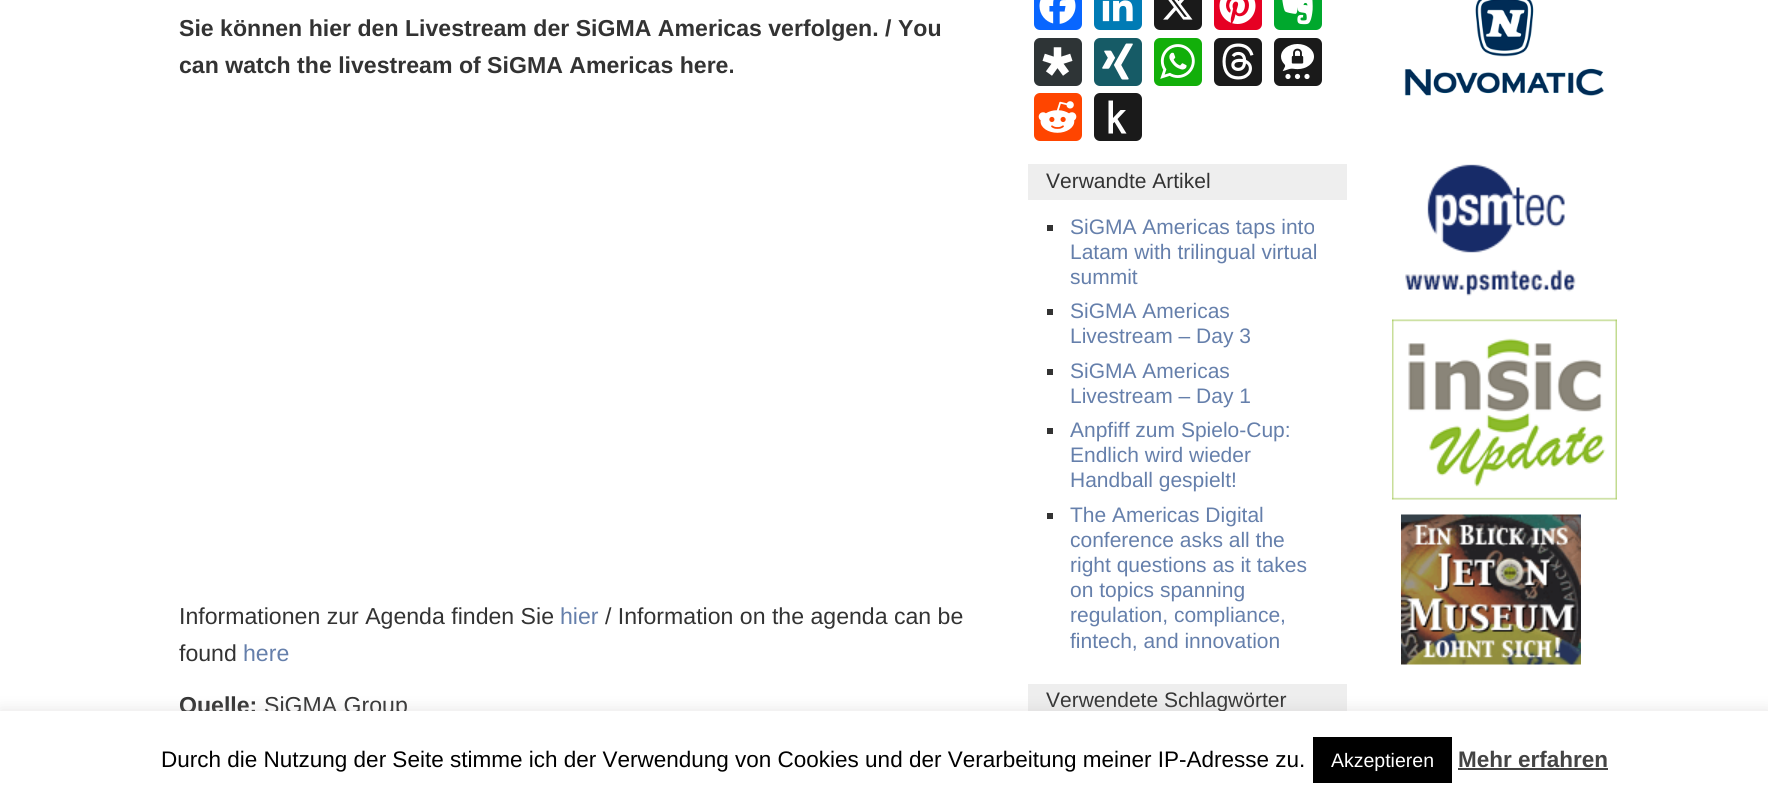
import math
import cairo

surface = cairo.ImageSurface(cairo.FORMAT_RGB24, 1768, 800)
ctx = cairo.Context(surface)
options = cairo.FontOptions()
options.set_hint_metrics(cairo.HINT_METRICS_OFF)
options.set_hint_style(cairo.HINT_STYLE_NONE)
ctx.set_font_options(options)
ctx.set_miter_limit(4)


def set_color(code):
    ctx.set_source_rgb(*(v / 255 for v in bytes.fromhex(code[-6:])))


def draw_text(x, y, s, family, size, color, bold=False, italic=False):
    ctx.select_font_face(family, cairo.FONT_SLANT_ITALIC if italic else cairo.FONT_SLANT_NORMAL, cairo.FONT_WEIGHT_BOLD if bold else cairo.FONT_WEIGHT_NORMAL)
    ctx.set_font_size(size)
    set_color(color)
    ctx.move_to(x, y)
    ctx.show_text(s)


def fill_rect(x, y, w, h, color):
    set_color(color)
    ctx.rectangle(x, y, w, h)
    ctx.fill()


def rounded_rect(x, y, w, h, r):
    ctx.new_sub_path()
    for i, (u, v) in enumerate([(x + w - r, y + h - r), (x + r, y + h - r), (x + r, y + r), (x + w - r, y + r)]):
        ctx.arc(u, v, r, i * math.pi / 2, (i + 1) * math.pi / 2)
    ctx.close_path()


def draw_shadow(x, y, w, h, r, blur, alpha):
    ctx.push_group_with_content(cairo.CONTENT_ALPHA)
    ctx.set_operator(cairo.OPERATOR_SOURCE)
    for i in range(15, -16, -2):
        e = blur * i / 6
        if min(w, h) + 2 * e > 0:
            ctx.set_source_rgba(0, 0, 0, alpha * math.erfc((i - 1) / 8.5) / 2)
            rounded_rect(x - e, y - e, w + 2 * e, h + 2 * e, max(0, min(r + e + blur * .6, min(w, h) / 2 + e)))
            ctx.fill()
    ctx.mask(ctx.pop_group())


def draw_image(path, x, y, w, h):
    ctx.save()
    ctx.set_source_surface(cairo.ImageSurface.create_from_png(path), x, y)
    ctx.rectangle(x, y, w, h)
    ctx.fill()
    ctx.restore()


set_color("#ffffff")
ctx.paint()
draw_text(179, 36, "Sie können hier den Livestream der SiGMA Americas verfolgen. / You", "Liberation Sans", 23.1, "#333333", bold=True)
draw_text(179, 73, "can watch the livestream of SiGMA Americas here.", "Liberation Sans", 23.1, "#333333", bold=True)
draw_text(179, 624, "Informationen zur Agenda finden Sie", "Liberation Sans", 23.1, "#333333")
draw_text(560, 624, "hier", "Liberation Sans", 23.1, "#657fab")
draw_text(605, 624, "/ Information on the agenda can be", "Liberation Sans", 23.1, "#333333")
draw_text(179, 661, "found", "Liberation Sans", 23.1, "#333333")
draw_text(243, 661, "here", "Liberation Sans", 23.1, "#657fab")
draw_text(179, 713, "Quelle:", "Liberation Sans", 23.1, "#333333", bold=True)
draw_text(264, 713, "SiGMA Group", "Liberation Sans", 23.1, "#333333")
set_color("#0866ff")
rounded_rect(1034, -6, 48, 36, 6)
ctx.fill()
draw_image("assets/img1.png", 1039, 0, 37, 24)
set_color("#007bb5")
rounded_rect(1094, -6, 48, 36, 6)
ctx.fill()
draw_image("assets/img2.png", 1102, 0, 31, 22)
set_color("#1a1a1a")
rounded_rect(1154, -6, 48, 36, 6)
ctx.fill()
draw_image("assets/img3.png", 1163, 0, 30, 20)
set_color("#e60023")
rounded_rect(1214, -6, 48, 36, 6)
ctx.fill()
draw_image("assets/img4.png", 1219, 0, 37, 24)
set_color("#00a82d")
rounded_rect(1274, -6, 48, 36, 6)
ctx.fill()
draw_image("assets/img5.png", 1282, 0, 31, 25)
set_color("#2e3436")
rounded_rect(1034, 38, 48, 48, 6)
ctx.fill()
draw_image("assets/img6.png", 1042, 47, 31, 29)
set_color("#165b66")
rounded_rect(1094, 38, 48, 48, 6)
ctx.fill()
draw_image("assets/img7.png", 1102, 43, 31, 37)
set_color("#12af0a")
rounded_rect(1154, 38, 48, 48, 6)
ctx.fill()
draw_image("assets/img8.png", 1160, 44, 35, 35)
set_color("#1a1a1a")
rounded_rect(1214, 38, 48, 48, 6)
ctx.fill()
draw_image("assets/img9.png", 1222, 43, 32, 37)
rounded_rect(1274, 38, 48, 48, 6)
ctx.fill()
draw_image("assets/img10.png", 1281, 44, 33, 36)
set_color("#ff4500")
rounded_rect(1034, 93, 48, 48, 6)
ctx.fill()
draw_image("assets/img11.png", 1038, 101, 39, 32)
set_color("#1a1a1a")
rounded_rect(1094, 93, 48, 48, 6)
ctx.fill()
set_color("#ffffff")
ctx.new_path()
ctx.move_to(1113, 133.5)
ctx.line_to(1108.5, 133.5)
ctx.line_to(1108.5, 100.5)
ctx.line_to(1113, 100.5)
ctx.line_to(1113, 118)
ctx.line_to(1120.5, 110)
ctx.line_to(1126, 110)
ctx.line_to(1117.5, 119)
ctx.line_to(1126.5, 133.5)
ctx.line_to(1121.5, 133.5)
ctx.line_to(1114.5, 122)
ctx.line_to(1113, 123.5)
ctx.close_path()
ctx.fill()
fill_rect(1028, 164, 319, 36, "#eeeeee")
draw_text(1046, 188, "Verwandte Artikel", "Liberation Sans", 21, "#333333")
fill_rect(1047, 225, 6, 6, "#333333")
draw_text(1070, 234, "SiGMA Americas taps into", "Liberation Sans", 21, "#657fab")
draw_text(1070, 259, "Latam with trilingual virtual", "Liberation Sans", 21, "#657fab")
draw_text(1070, 284, "summit", "Liberation Sans", 21, "#657fab")
fill_rect(1047, 309, 6, 6, "#333333")
draw_text(1070, 318, "SiGMA Americas", "Liberation Sans", 21, "#657fab")
draw_text(1070, 343, "Livestream – Day 3", "Liberation Sans", 21, "#657fab")
fill_rect(1047, 369, 6, 6, "#333333")
draw_text(1070, 378, "SiGMA Americas", "Liberation Sans", 21, "#657fab")
draw_text(1070, 403, "Livestream – Day 1", "Liberation Sans", 21, "#657fab")
fill_rect(1047, 428, 6, 6, "#333333")
draw_text(1070, 437, "Anpfiff zum Spielo-Cup:", "Liberation Sans", 21, "#657fab")
draw_text(1070, 462, "Endlich wird wieder", "Liberation Sans", 21, "#657fab")
draw_text(1070, 487, "Handball gespielt!", "Liberation Sans", 21, "#657fab")
fill_rect(1047, 513, 6, 6, "#333333")
draw_text(1070, 522, "The Americas Digital", "Liberation Sans", 21, "#657fab")
draw_text(1070, 547, "conference asks all the", "Liberation Sans", 21, "#657fab")
draw_text(1070, 572, "right questions as it takes", "Liberation Sans", 21, "#657fab")
draw_text(1070, 597, "on topics spanning", "Liberation Sans", 21, "#657fab")
draw_text(1070, 622, "regulation, compliance,", "Liberation Sans", 21, "#657fab")
draw_text(1070, 648, "fintech, and innovation", "Liberation Sans", 21, "#657fab")
fill_rect(1028, 684, 319, 27, "#eeeeee")
draw_text(1046, 707, "Verwendete Schlagwörter", "Liberation Sans", 21, "#333333")
draw_image("assets/img12.png", 1404, 0, 200, 96)
draw_image("assets/img13.png", 1405, 164, 171, 132)
draw_image("assets/img14.png", 1392, 319, 225, 181)
draw_image("assets/img15.png", 1401, 514, 180, 151)
set_color("#acabab")
draw_shadow(0, 710, 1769, 90, 0, 7.5, 0.3)
fill_rect(0, 711, 1768, 89, "#ffffff")
draw_text(161, 767, "Durch die Nutzung der Seite stimme ich der Verwendung von Cookies und der Verarbeitung meiner IP-Adresse zu.", "Liberation Sans", 22.5, "#000000")
fill_rect(1313, 737, 139, 46, "#000000")
draw_text(1331, 767, "Akzeptieren", "Liberation Sans", 19.5, "#ffffff")
draw_text(1458, 767, "Mehr erfahren", "Liberation Sans", 22.5, "#444444", bold=True)
fill_rect(1458, 768, 150, 2, "#444444")
surface.write_to_png("output.png")
